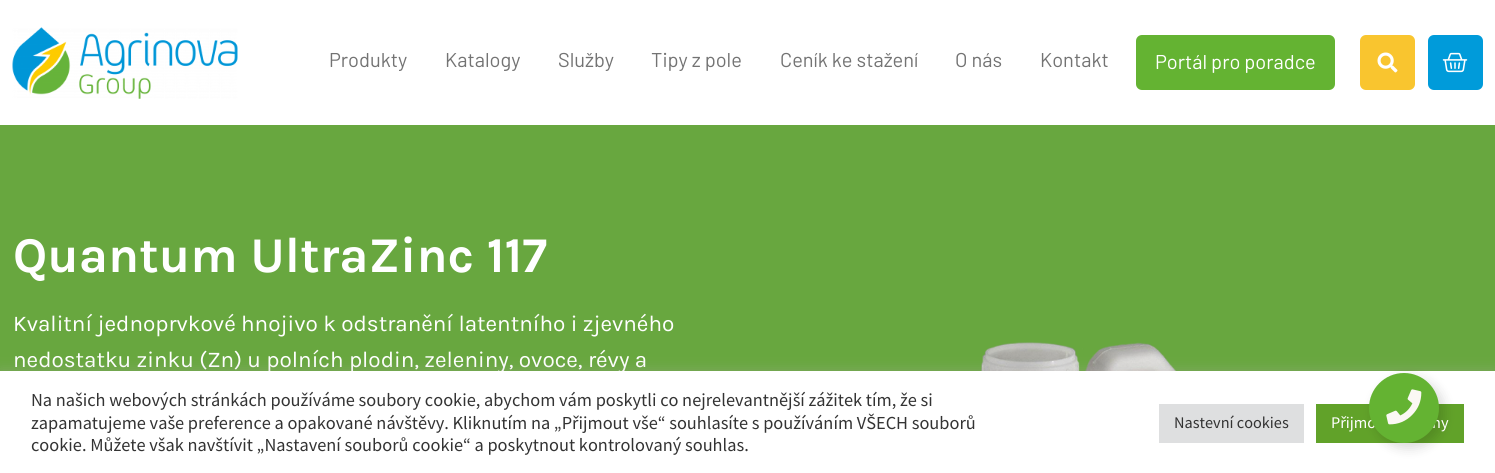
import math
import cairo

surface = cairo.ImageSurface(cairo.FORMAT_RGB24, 1495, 473)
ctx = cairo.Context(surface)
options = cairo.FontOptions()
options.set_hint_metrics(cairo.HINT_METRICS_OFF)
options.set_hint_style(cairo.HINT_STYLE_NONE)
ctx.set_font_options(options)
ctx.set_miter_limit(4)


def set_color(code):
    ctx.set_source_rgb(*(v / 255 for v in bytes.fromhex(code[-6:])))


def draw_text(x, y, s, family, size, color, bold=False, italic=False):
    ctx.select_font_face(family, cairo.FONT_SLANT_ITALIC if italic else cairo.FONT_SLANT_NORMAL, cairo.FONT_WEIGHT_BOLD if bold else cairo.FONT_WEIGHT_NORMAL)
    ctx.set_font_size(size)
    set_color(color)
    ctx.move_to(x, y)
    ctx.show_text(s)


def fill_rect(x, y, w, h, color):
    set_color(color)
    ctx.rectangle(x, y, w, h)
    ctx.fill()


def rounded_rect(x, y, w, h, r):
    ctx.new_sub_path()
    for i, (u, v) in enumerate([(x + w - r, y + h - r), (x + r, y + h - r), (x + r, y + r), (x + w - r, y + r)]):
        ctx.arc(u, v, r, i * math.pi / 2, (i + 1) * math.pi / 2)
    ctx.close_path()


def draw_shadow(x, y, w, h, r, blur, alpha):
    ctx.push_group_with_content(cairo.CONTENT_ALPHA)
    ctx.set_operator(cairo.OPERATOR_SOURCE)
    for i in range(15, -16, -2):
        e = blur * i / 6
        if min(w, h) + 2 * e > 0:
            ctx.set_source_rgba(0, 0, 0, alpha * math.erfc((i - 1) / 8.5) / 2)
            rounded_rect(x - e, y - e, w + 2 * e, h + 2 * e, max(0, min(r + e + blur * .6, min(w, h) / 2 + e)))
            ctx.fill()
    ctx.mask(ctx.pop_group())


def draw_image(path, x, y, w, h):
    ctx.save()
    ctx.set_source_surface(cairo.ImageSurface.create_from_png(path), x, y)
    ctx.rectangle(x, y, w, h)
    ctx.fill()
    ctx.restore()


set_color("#ffffff")
ctx.paint()
draw_image("assets/img1.png", 12, 27, 226, 72)
draw_text(329, 67, "Produkty", "Barlow", 20, "#737373")
draw_text(445, 67, "Katalogy", "Barlow", 20, "#737373")
draw_text(558, 67, "Služby", "Barlow", 20, "#737373")
draw_text(651, 67, "Tipy z pole", "Barlow", 20, "#737373")
draw_text(780, 67, "Ceník ke stažení", "Barlow", 20, "#737373")
draw_text(955, 67, "O nás", "Barlow", 20, "#737373")
draw_text(1040, 67, "Kontakt", "Barlow", 20, "#737373")
set_color("#64b332")
rounded_rect(1136, 35, 199, 55, 6)
ctx.fill()
draw_text(1155, 69, "Portál pro poradce", "Barlow", 20, "#ffffff")
set_color("#f9c52f")
rounded_rect(1360, 35, 55, 55, 6)
ctx.fill()
draw_image("assets/img2.png", 1377, 52, 21, 21)
set_color("#009bda")
rounded_rect(1428, 35, 55, 55, 6)
ctx.fill()
draw_image("assets/img3.png", 1442, 52, 26, 21)
fill_rect(0, 125, 1495, 246, "#68a73f")
draw_text(13, 272, "Quantum UltraZinc 117", "Karla", 50, "#ffffff", bold=True)
draw_text(13, 331, "Kvalitní jednoprvkové hnojivo k odstranění latentního i zjevného", "Karla", 22.5, "#ffffff")
draw_text(13, 367, "nedostatku zinku (Zn) u polních plodin, zeleniny, ovoce, révy a", "Karla", 22.5, "#ffffff")
draw_image("assets/img4.png", 981, 342, 196, 29)
set_color("#acabab")
draw_shadow(0, 370, 1495, 103, 0, 6, 0.3)
fill_rect(0, 371, 1495, 102, "#ffffff")
fill_rect(1316, 404, 148, 39, "#61a229")
set_color("#000000")
draw_shadow(1374, 378, 70, 70, 35, 6, 0.15)
draw_text(1331, 428, "Přijmo", "Source Sans Pro", 16.25, "#ffffff")
draw_text(1432, 428, "ny", "Source Sans Pro", 16.25, "#ffffff")
set_color("#64b332")
ctx.new_path()
ctx.arc(1404, 408, 35, 0, 2 * math.pi)
ctx.fill()
draw_image("assets/img5.png", 1386, 389, 36, 36)
draw_text(31, 406, "Na našich webových stránkách používáme soubory cookie, abychom vám poskytli co nejrelevantnější zážitek tím, že si", "Source Sans Pro", 18.33, "#333333")
draw_text(31, 429, "zapamatujeme vaše preference a opakované návštěvy. Kliknutím na „Přijmout vše“ souhlasíte s používáním VŠECH souborů", "Source Sans Pro", 18.33, "#333333")
draw_text(31, 451, "cookie. Můžete však navštívit „Nastavení souborů cookie“ a poskytnout kontrolovaný souhlas.", "Source Sans Pro", 18.33, "#333333")
fill_rect(1159, 404, 145, 39, "#dedfe0")
draw_text(1174, 428, "Nastevní cookies", "Source Sans Pro", 16.25, "#333333")
surface.write_to_png("output.png")
